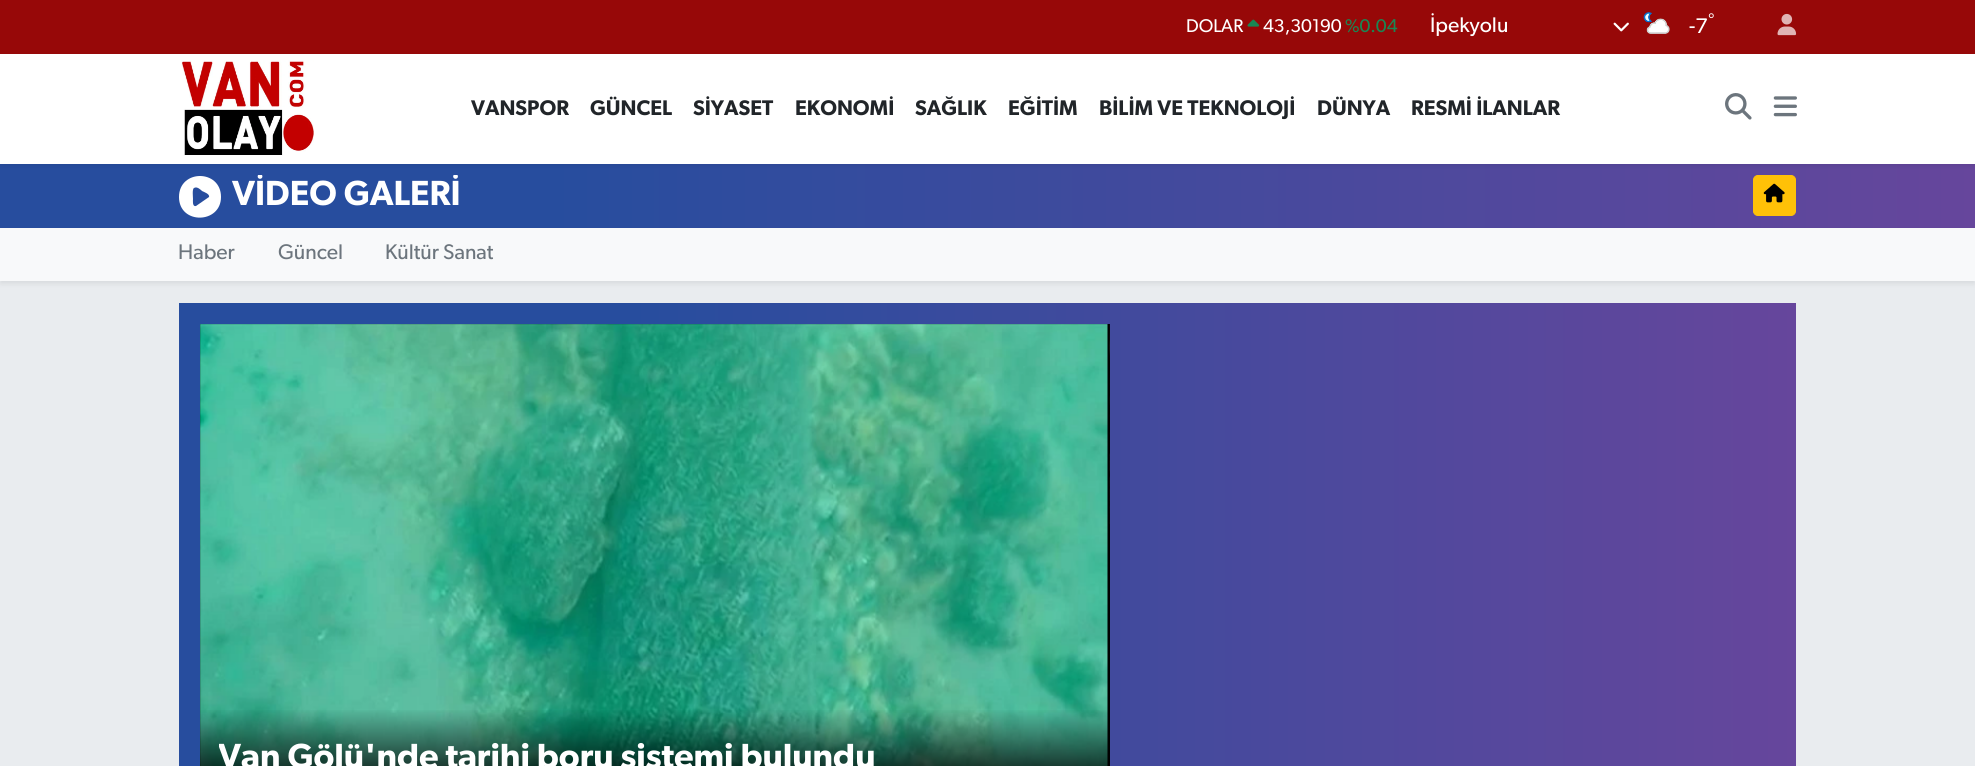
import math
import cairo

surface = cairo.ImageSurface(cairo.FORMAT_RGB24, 1975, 766)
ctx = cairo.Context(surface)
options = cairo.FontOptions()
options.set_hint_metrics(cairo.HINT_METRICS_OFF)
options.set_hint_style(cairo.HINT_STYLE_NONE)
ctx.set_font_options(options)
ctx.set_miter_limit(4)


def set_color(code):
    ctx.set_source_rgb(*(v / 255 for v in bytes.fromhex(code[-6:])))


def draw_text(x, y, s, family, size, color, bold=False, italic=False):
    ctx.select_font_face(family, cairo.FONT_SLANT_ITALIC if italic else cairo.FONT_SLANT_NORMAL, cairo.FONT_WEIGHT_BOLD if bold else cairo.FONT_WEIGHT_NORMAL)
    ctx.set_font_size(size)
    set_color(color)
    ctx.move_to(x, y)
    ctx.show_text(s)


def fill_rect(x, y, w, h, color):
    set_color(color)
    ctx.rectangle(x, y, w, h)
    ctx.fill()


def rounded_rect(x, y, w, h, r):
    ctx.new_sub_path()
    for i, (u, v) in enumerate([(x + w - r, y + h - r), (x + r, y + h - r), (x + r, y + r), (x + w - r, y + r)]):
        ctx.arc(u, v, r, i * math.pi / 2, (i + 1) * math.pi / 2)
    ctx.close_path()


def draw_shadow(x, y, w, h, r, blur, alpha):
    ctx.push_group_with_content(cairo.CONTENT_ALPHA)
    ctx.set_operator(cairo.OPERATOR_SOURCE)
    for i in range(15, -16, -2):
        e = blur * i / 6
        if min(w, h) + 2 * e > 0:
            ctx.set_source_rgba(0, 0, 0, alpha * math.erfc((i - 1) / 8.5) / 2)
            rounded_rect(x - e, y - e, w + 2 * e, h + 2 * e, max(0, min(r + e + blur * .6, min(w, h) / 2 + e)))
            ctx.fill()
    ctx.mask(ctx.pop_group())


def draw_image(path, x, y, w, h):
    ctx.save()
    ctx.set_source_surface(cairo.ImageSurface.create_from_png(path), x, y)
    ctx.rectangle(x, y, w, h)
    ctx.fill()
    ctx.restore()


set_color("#e9ecef")
ctx.paint()
fill_rect(0, 0, 1975, 54, "#970808")
draw_text(1186, 32, "DOLAR", "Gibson", 18.5, "#ffffff")
draw_image("assets/img1.png", 1247, 19, 13, 8)
draw_text(1263, 32, "43,30190", "Gibson", 18.5, "#ffffff")
draw_text(1345, 32, "%0.04", "Gibson", 18.5, "#198754")
draw_text(1430, 32, "İpekyolu", "Gibson", 21.25, "#ffffff")
draw_image("assets/img2.png", 1613, 22, 16, 10)
draw_image("assets/img3.png", 1643, 12, 27, 22)
draw_text(1708, 25, "°", "Gibson", 16, "#ffffff")
draw_text(1689, 33, "-7", "Gibson", 21.25, "#ffffff")
draw_image("assets/img4.png", 1777, 13, 20, 23)
gradient = cairo.LinearGradient(1975, 196, 0, 196)
gradient.add_color_stop_rgba(0, 0.4, 0.275, 0.612, 1)
gradient.add_color_stop_rgba(0.72, 0.153, 0.302, 0.62, 1)
ctx.set_source(gradient)
ctx.rectangle(0, 164, 1975, 64)
ctx.fill()
set_color("#000000")
draw_shadow(0, 56, 1975, 110, 0, 2.5, 0.07)
fill_rect(0, 54, 1975, 110, "#ffffff")
draw_image("assets/img5.png", 181, 60, 133, 96)
draw_text(471, 115, "VANSPOR", "Gibson SemiBold", 21.25, "#212529")
draw_text(590, 115, "GÜNCEL", "Gibson SemiBold", 21.25, "#212529")
draw_text(693, 115, "SİYASET", "Gibson SemiBold", 21.25, "#212529")
draw_text(795, 115, "EKONOMİ", "Gibson SemiBold", 21.25, "#212529")
draw_text(915, 115, "SAĞLIK", "Gibson SemiBold", 21.25, "#212529")
draw_text(1008, 115, "EĞİTİM", "Gibson SemiBold", 21.25, "#212529")
draw_text(1099, 115, "BİLİM VE TEKNOLOJİ", "Gibson SemiBold", 21.25, "#212529")
draw_text(1317, 115, "DÜNYA", "Gibson SemiBold", 21.25, "#212529")
draw_text(1411, 115, "RESMİ İLANLAR", "Gibson SemiBold", 21.25, "#212529")
draw_image("assets/img6.png", 1725, 93, 27, 27)
draw_image("assets/img7.png", 1773, 96, 24, 21)
set_color("#ffffff")
ctx.new_path()
ctx.move_to(179, 197)
ctx.curve_to(179, 169, 221, 169, 221, 197)
ctx.curve_to(221, 224, 179, 225, 179, 197)
ctx.close_path()
ctx.move_to(194, 188)
ctx.curve_to(192, 189, 193, 197, 193, 199)
ctx.curve_to(193, 200, 192, 207, 196, 206)
ctx.line_to(209, 197)
ctx.curve_to(210, 194, 204, 192, 202, 191)
ctx.curve_to(201, 190, 197, 186, 194, 188)
ctx.close_path()
ctx.fill()
ctx.save()
ctx.rectangle(231, 175, 229, 41)
ctx.clip()
draw_text(232, 205, "VİDEO GALERİ", "Gibson SemiBold", 35, "#ffffff")
ctx.restore()
set_color("#ffc107")
rounded_rect(1753.5, 175.5, 42, 40, 4.5)
ctx.fill_preserve()
ctx.set_line_width(1)
ctx.stroke()
draw_image("assets/img8.png", 1763, 183, 22, 20)
set_color("#000000")
draw_shadow(0, 230, 1975, 54, 0, 2.5, 0.07)
fill_rect(0, 228, 1975, 53, "#f8f9fa")
draw_text(178, 259, "Haber", "Gibson", 21.25, "#6c757d")
draw_text(278, 259, "Güncel", "Gibson", 21.25, "#6c757d")
draw_text(385, 259, "Kültür Sanat", "Gibson", 21.25, "#6c757d")
gradient = cairo.LinearGradient(1796, 590, 179, 590)
gradient.add_color_stop_rgba(0, 0.4, 0.275, 0.612, 1)
gradient.add_color_stop_rgba(0.72, 0.153, 0.302, 0.62, 1)
ctx.set_source(gradient)
ctx.rectangle(179, 303, 1617, 463)
ctx.fill()
fill_rect(200, 324, 910, 442, "#000000")
draw_image("assets/img9.png", 1109, 324, 1, 200)
draw_image("assets/img10.png", 200, 324, 908, 442)
gradient = cairo.LinearGradient(655, 708, 655, 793)
gradient.add_color_stop_rgba(0, 0, 0, 0, 0)
gradient.add_color_stop_rgba(1, 0, 0, 0, 1)
ctx.set_source(gradient)
ctx.rectangle(200, 710, 908, 56)
ctx.fill()
ctx.save()
ctx.rectangle(219, 739, 872, 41)
ctx.clip()
draw_text(218, 768, "Van Gölü'nde tarihi boru sistemi bulundu", "Gibson SemiBold", 35, "#ffffff")
ctx.restore()
surface.write_to_png("output.png")
